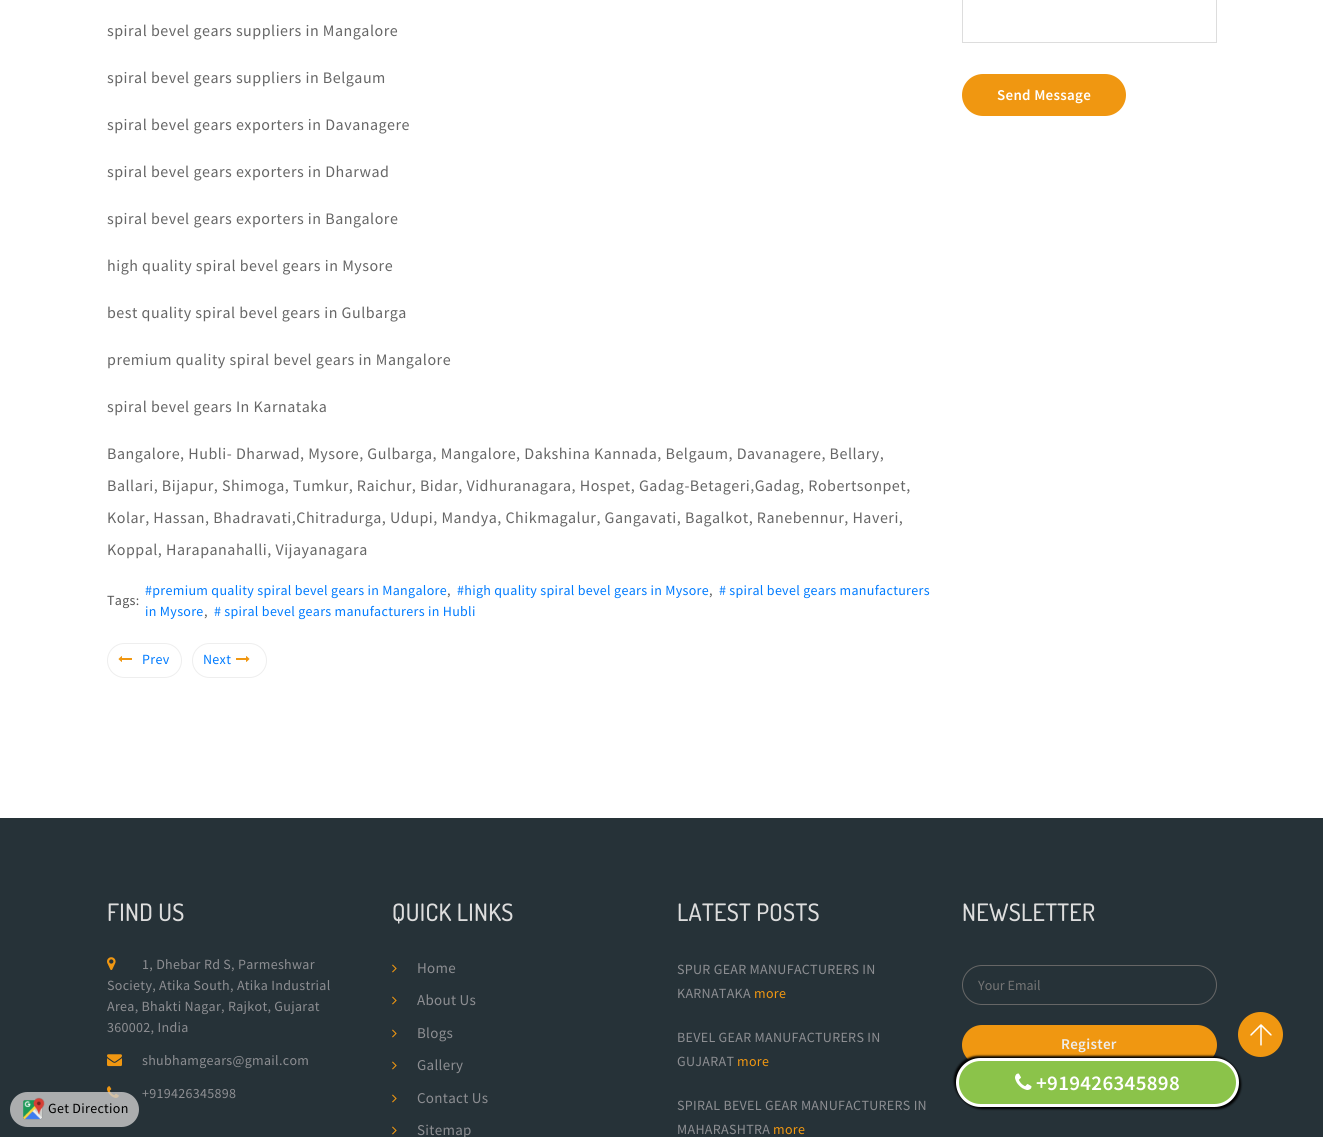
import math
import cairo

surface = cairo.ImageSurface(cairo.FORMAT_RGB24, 1323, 1137)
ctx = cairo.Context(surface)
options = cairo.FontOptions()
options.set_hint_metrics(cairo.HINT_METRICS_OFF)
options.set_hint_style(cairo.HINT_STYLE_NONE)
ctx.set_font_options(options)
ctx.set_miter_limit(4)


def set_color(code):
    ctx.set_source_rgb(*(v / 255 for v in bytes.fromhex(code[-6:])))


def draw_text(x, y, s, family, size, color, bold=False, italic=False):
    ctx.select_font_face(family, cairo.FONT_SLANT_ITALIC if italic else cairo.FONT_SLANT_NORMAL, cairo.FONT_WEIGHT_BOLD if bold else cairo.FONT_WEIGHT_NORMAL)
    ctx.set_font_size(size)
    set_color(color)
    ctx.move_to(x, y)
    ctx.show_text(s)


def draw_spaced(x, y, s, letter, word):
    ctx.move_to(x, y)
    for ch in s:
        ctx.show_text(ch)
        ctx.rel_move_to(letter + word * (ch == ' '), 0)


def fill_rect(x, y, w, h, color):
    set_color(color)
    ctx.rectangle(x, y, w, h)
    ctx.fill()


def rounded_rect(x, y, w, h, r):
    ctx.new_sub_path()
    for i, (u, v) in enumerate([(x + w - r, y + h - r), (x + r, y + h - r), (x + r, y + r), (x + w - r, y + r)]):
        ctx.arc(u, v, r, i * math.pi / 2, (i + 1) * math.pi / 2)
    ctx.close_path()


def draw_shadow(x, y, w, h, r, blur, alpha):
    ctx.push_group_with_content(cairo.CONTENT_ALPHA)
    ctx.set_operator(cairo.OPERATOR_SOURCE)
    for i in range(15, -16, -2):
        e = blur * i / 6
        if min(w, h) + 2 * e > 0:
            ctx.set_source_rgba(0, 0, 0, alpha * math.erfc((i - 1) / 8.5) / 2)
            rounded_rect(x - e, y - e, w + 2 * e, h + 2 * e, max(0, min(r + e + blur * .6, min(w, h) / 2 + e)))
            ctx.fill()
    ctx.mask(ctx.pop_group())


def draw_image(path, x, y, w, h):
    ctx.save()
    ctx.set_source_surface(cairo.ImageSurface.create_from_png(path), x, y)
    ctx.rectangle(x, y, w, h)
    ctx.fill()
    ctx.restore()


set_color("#ffffff")
ctx.paint()
ctx.select_font_face("Source Sans Pro")
ctx.set_font_size(16)
set_color("#666666")
draw_spaced(107, 36, "spiral bevel gears suppliers in Mangalore", 0.5, 0)
draw_spaced(107, 83, "spiral bevel gears suppliers in Belgaum", 0.5, 0)
draw_spaced(107, 130, "spiral bevel gears exporters in Davanagere", 0.5, 0)
draw_spaced(107, 177, "spiral bevel gears exporters in Dharwad", 0.5, 0)
draw_spaced(107, 224, "spiral bevel gears exporters in Bangalore", 0.5, 0)
draw_spaced(107, 271, "high quality spiral bevel gears in Mysore", 0.5, 0)
draw_spaced(107, 318, "best quality spiral bevel gears in Gulbarga", 0.5, 0)
draw_spaced(107, 365, "premium quality spiral bevel gears in Mangalore", 0.5, 0)
draw_spaced(107, 412, "spiral bevel gears In Karnataka", 0.5, 0)
draw_spaced(107, 459, "Bangalore, Hubli- Dharwad, Mysore, Gulbarga, Mangalore, Dakshina Kannada, Belgaum, Davanagere, Bellary,", 0.5, 0)
draw_spaced(107, 491, "Ballari, Bijapur, Shimoga, Tumkur, Raichur, Bidar, Vidhuranagara, Hospet, Gadag-Betageri,Gadag, Robertsonpet,", 0.5, 0)
draw_spaced(107, 523, "Kolar, Hassan, Bhadravati,Chitradurga, Udupi, Mandya, Chikmagalur, Gangavati, Bagalkot, Ranebennur, Haveri,", 0.5, 0)
draw_spaced(107, 555, "Koppal, Harapanahalli, Vijayanagara", 0.5, 0)
ctx.set_font_size(14)
set_color("#555555")
draw_spaced(107, 605, "Tags:", 0.3, 0)
set_color("#007bff")
draw_spaced(145, 595, "#premium quality spiral bevel gears in Mangalore", 0.3, 0)
set_color("#555555")
draw_spaced(447, 595, ",", 0.3, 0)
set_color("#007bff")
draw_spaced(457, 595, "#high quality spiral bevel gears in Mysore", 0.3, 0)
set_color("#555555")
draw_spaced(709, 595, ",", 0.3, 0)
set_color("#007bff")
draw_spaced(719, 595, "# spiral bevel gears manufacturers", 0.3, 0)
draw_spaced(145, 616, "in Mysore", 0.3, 0)
set_color("#555555")
draw_spaced(204, 616, ",", 0.3, 0)
set_color("#007bff")
draw_spaced(214, 616, "# spiral bevel gears manufacturers in Hubli", 0.3, 0)
rounded_rect(107.5, 643.5, 74, 34, 17)
set_color("#eeeeee")
ctx.set_line_width(1)
ctx.stroke()
draw_image("assets/img1.png", 118, 656, 14, 6)
set_color("#007bff")
draw_spaced(142, 664, "Prev", 0.3, 0)
rounded_rect(192.5, 643.5, 74, 34, 17)
set_color("#eeeeee")
ctx.stroke()
set_color("#007bff")
draw_spaced(203, 664, "Next", 0.3, 0)
draw_image("assets/img2.png", 236, 656, 14, 6)
ctx.rectangle(962.5, -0.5, 254, 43)
set_color("#dddddd")
ctx.stroke()
set_color("#f09711")
rounded_rect(962, 74, 164, 42, 21)
ctx.fill()
ctx.select_font_face("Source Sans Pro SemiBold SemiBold")
ctx.set_font_size(15)
set_color("#ffffff")
draw_spaced(997, 100, "Send Message", 0.3, 0)
fill_rect(0, 818, 1323, 319, "#263238")
ctx.select_font_face("Dosis Medium")
ctx.set_font_size(24)
set_color("#dddddd")
draw_spaced(107, 921, "FIND US", 0.3, 0)
draw_image("assets/img3.png", 107, 957, 9, 13)
ctx.select_font_face("Source Sans Pro")
ctx.set_font_size(14)
set_color("#8d8e92")
draw_spaced(142, 969, "1, Dhebar Rd S, Parmeshwar", 0.3, 0)
draw_spaced(107, 990, "Society, Atika South, Atika Industrial", 0.3, 0)
draw_spaced(107, 1011, "Area, Bhakti Nagar, Rajkot, Gujarat", 0.3, 0)
draw_spaced(107, 1032, "360002, India", 0.3, 0)
draw_image("assets/img4.png", 107, 1054, 15, 13)
draw_spaced(142, 1065, "shubhamgears@gmail.com", 0.3, 0)
draw_image("assets/img5.png", 107, 1086, 12, 12)
draw_spaced(142, 1098, "+919426345898", 0.3, 0)
ctx.select_font_face("Dosis Medium")
ctx.set_font_size(24)
set_color("#dddddd")
draw_spaced(392, 921, "QUICK LINKS", 0.3, 0)
draw_image("assets/img6.png", 392, 964, 5, 9)
ctx.select_font_face("Source Sans Pro")
ctx.set_font_size(15)
set_color("#8d8e92")
draw_spaced(417, 973, "Home", 0.3, 0)
draw_image("assets/img6.png", 392, 996, 5, 9)
draw_spaced(417, 1005, "About Us", 0.3, 0)
draw_image("assets/img6.png", 392, 1029, 5, 9)
draw_spaced(417, 1038, "Blogs", 0.3, 0)
draw_image("assets/img6.png", 392, 1061, 5, 9)
draw_spaced(417, 1070, "Gallery", 0.3, 0)
draw_image("assets/img6.png", 392, 1094, 5, 9)
draw_spaced(417, 1103, "Contact Us", 0.3, 0)
draw_image("assets/img6.png", 392, 1126, 5, 9)
draw_spaced(417, 1135, "Sitemap", 0.3, 0)
ctx.select_font_face("Dosis Medium")
ctx.set_font_size(24)
set_color("#dddddd")
draw_spaced(677, 921, "LATEST POSTS", 0.3, 0)
ctx.select_font_face("Source Sans Pro")
ctx.set_font_size(14)
set_color("#8d8e92")
draw_spaced(677, 974, "SPUR GEAR MANUFACTURERS IN", 0.3, 0)
draw_spaced(677, 998, "KARNATAKA", 0.3, 0)
set_color("#f09711")
draw_spaced(754, 998, "more", 0.3, 0)
set_color("#8d8e92")
draw_spaced(677, 1042, "BEVEL GEAR MANUFACTURERS IN", 0.3, 0)
draw_spaced(677, 1066, "GUJARAT", 0.3, 0)
set_color("#f09711")
draw_spaced(737, 1066, "more", 0.3, 0)
set_color("#8d8e92")
draw_spaced(677, 1110, "SPIRAL BEVEL GEAR MANUFACTURERS IN", 0.3, 0)
draw_spaced(677, 1134, "MAHARASHTRA", 0.3, 0)
set_color("#f09711")
draw_spaced(773, 1134, "more", 0.3, 0)
ctx.select_font_face("Dosis Medium")
ctx.set_font_size(24)
set_color("#dddddd")
draw_spaced(962, 921, "NEWSLETTER", 0.3, 0)
rounded_rect(962.5, 965.5, 254, 39, 19.5)
set_color("#666666")
ctx.stroke()
draw_text(978, 990, "Your Email", "Source Sans Pro", 14, "#757575")
set_color("#f09711")
rounded_rect(962, 1025, 255, 40, 20)
ctx.fill()
ctx.select_font_face("Source Sans Pro SemiBold SemiBold")
ctx.set_font_size(15)
set_color("#eeeeee")
draw_spaced(1061, 1049, "Register", 0.3, 0)
set_color("#f09711")
ctx.new_path()
ctx.arc(1260.5, 1034.5, 22.5, 0, 2 * math.pi)
ctx.fill()
draw_image("assets/img7.png", 1250, 1024, 22, 22)
set_color("#000000")
draw_shadow(954, 1056, 283, 49, 24.5, 1, 1)
draw_shadow(958, 1060, 283, 49, 24.5, 1, 1)
set_color("#8bc34a")
rounded_rect(957.5, 1059.5, 280, 46, 23)
ctx.fill_preserve()
set_color("#ffffff")
ctx.set_line_width(3)
ctx.stroke()
draw_image("assets/img8.png", 1015, 1073, 17, 17)
ctx.set_font_size(21)
draw_spaced(1036, 1090, "+919426345898", 0.3, 0)
ctx.set_source_rgba(0.8, 0.8, 0.8, 0.8)
rounded_rect(10, 1092, 129, 35, 17.5)
ctx.fill()
draw_image("assets/img9.png", 23, 1097, 22, 23)
ctx.select_font_face("Source Sans Pro")
ctx.set_font_size(14)
set_color("#000000")
draw_spaced(48, 1113, "Get Direction", 0.3, 0)
surface.write_to_png("output.png")
